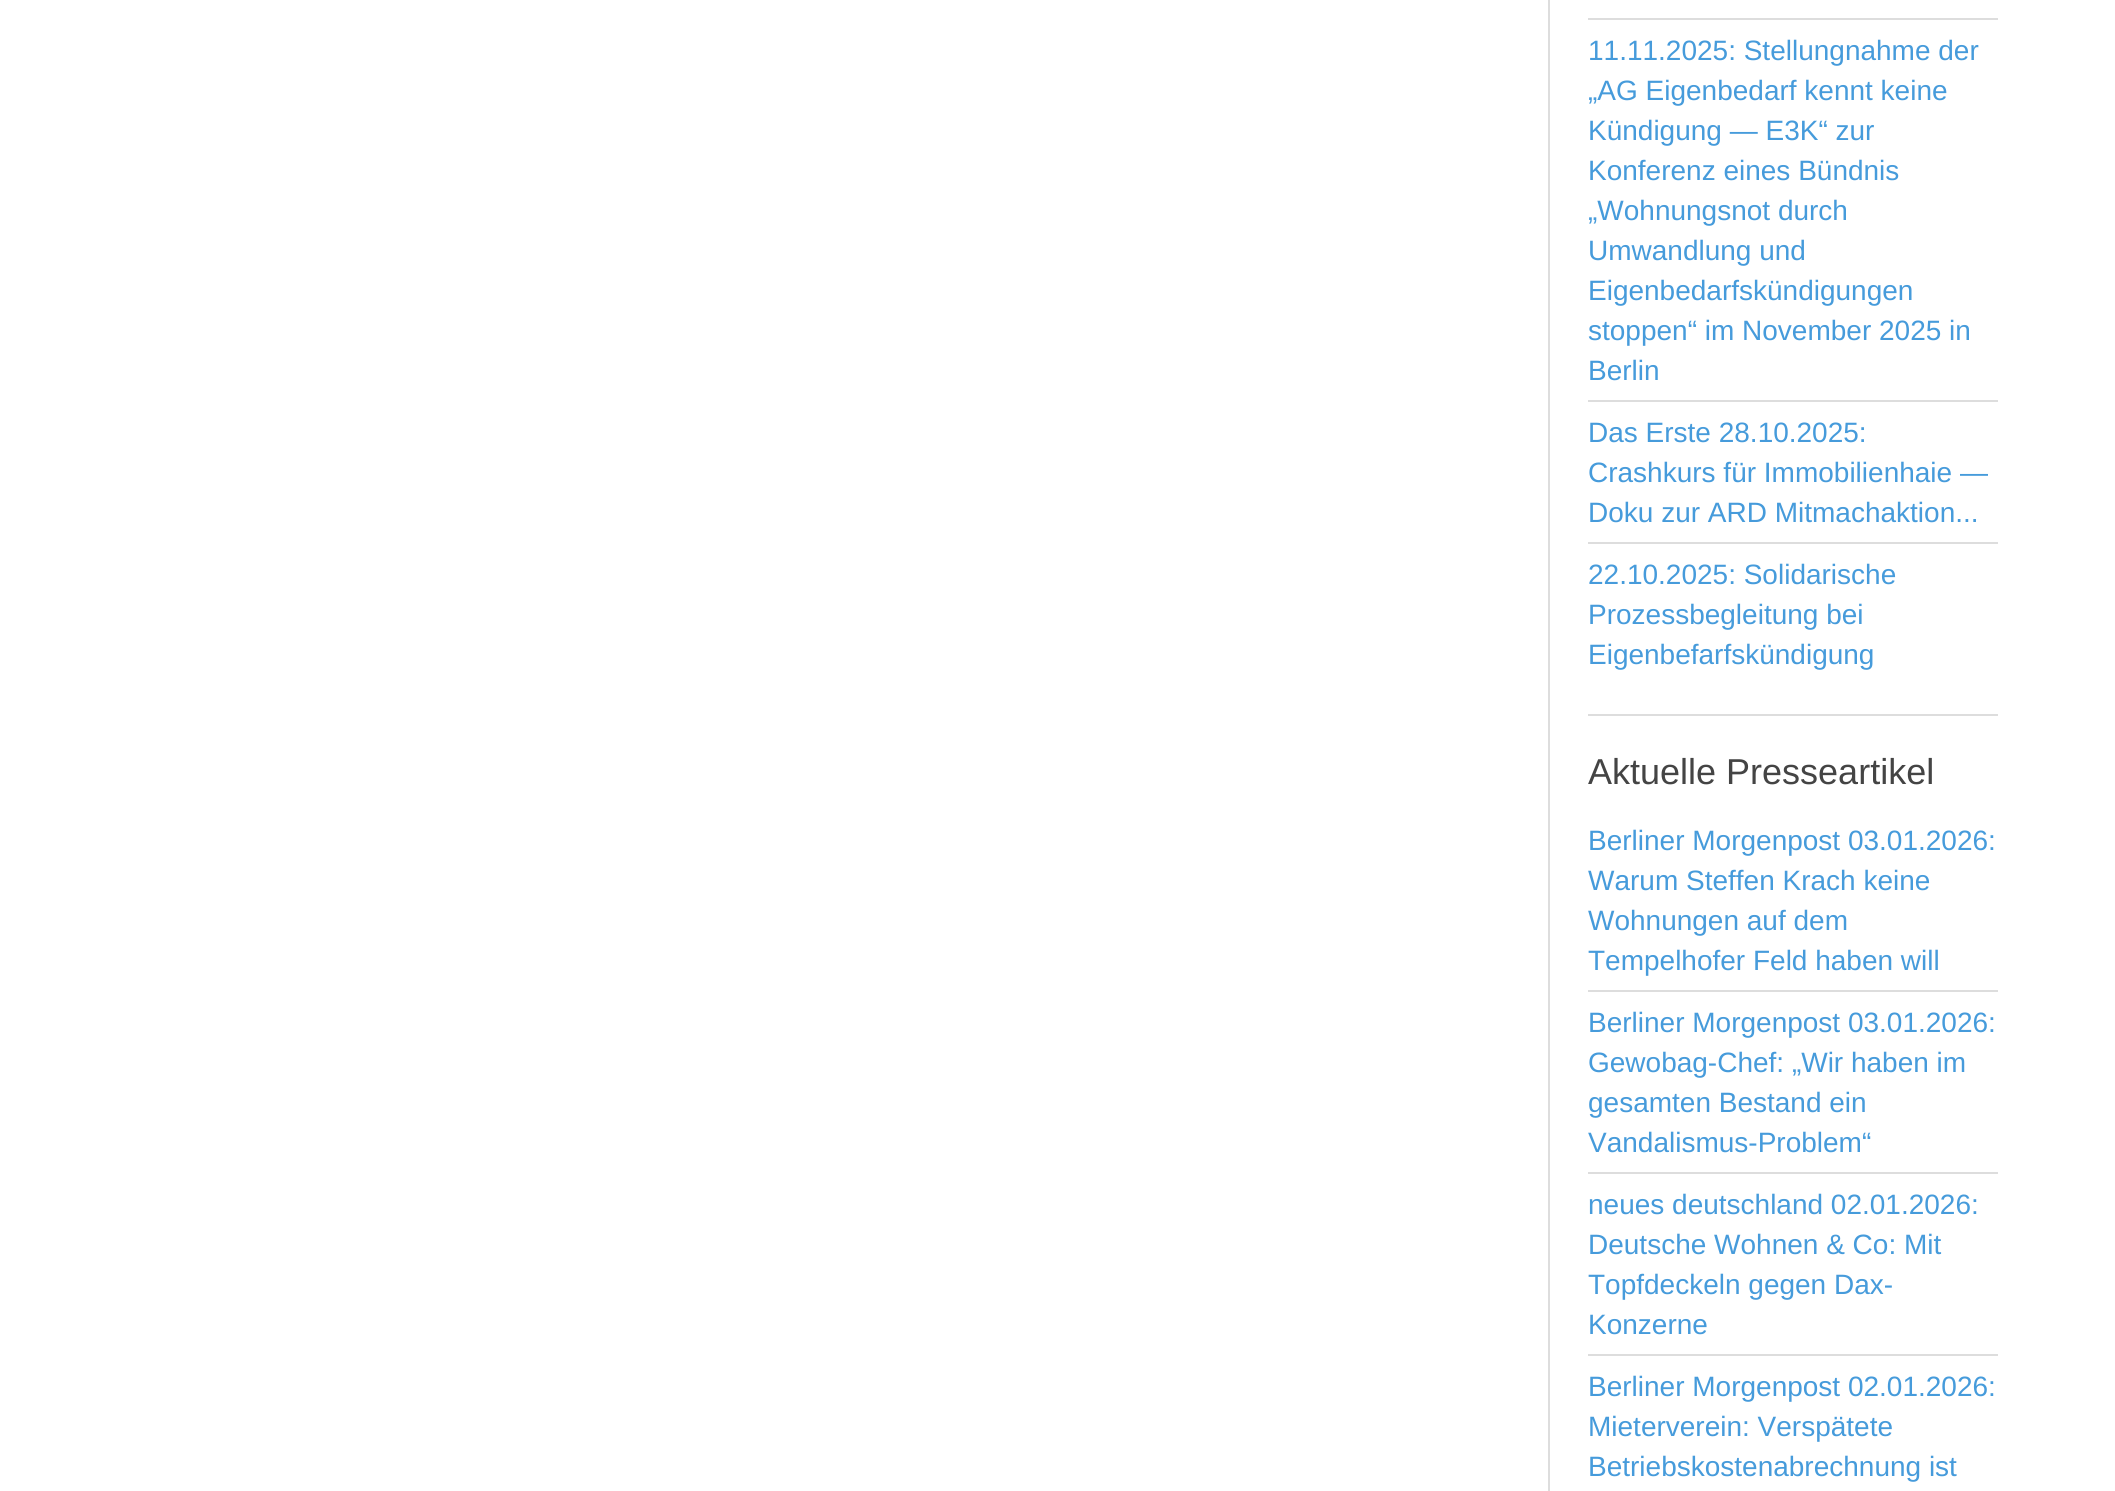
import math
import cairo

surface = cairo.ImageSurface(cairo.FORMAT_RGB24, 2115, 1491)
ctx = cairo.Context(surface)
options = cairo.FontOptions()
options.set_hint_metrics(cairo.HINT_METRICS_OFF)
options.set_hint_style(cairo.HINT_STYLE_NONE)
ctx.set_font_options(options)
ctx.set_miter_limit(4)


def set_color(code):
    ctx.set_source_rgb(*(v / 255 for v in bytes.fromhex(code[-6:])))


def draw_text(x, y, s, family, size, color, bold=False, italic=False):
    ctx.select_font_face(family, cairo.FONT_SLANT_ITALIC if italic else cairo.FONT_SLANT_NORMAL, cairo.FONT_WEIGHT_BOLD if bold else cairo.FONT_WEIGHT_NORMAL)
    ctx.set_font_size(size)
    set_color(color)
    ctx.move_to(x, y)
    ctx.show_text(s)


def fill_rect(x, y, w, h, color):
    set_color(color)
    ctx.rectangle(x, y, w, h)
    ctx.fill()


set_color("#ffffff")
ctx.paint()
fill_rect(1548, 0, 2, 1491, "#dddddd")
fill_rect(1588, 18, 410, 2, "#dddddd")
draw_text(1588, 60, "11.11.2025: Stellungnahme der", "Liberation Sans", 28, "#469bdb")
draw_text(1588, 100, "„AG Eigenbedarf kennt keine", "Liberation Sans", 28, "#469bdb")
draw_text(1588, 140, "Kündigung — E3K“ zur", "Liberation Sans", 28, "#469bdb")
draw_text(1588, 180, "Konferenz eines Bündnis", "Liberation Sans", 28, "#469bdb")
draw_text(1588, 220, "„Wohnungsnot durch", "Liberation Sans", 28, "#469bdb")
draw_text(1588, 260, "Umwandlung und", "Liberation Sans", 28, "#469bdb")
draw_text(1588, 300, "Eigenbedarfskündigungen", "Liberation Sans", 28, "#469bdb")
draw_text(1588, 340, "stoppen“ im November 2025 in", "Liberation Sans", 28, "#469bdb")
draw_text(1588, 380, "Berlin", "Liberation Sans", 28, "#469bdb")
fill_rect(1588, 400, 410, 2, "#dddddd")
draw_text(1588, 442, "Das Erste 28.10.2025:", "Liberation Sans", 28, "#469bdb")
draw_text(1588, 482, "Crashkurs für Immobilienhaie —", "Liberation Sans", 28, "#469bdb")
draw_text(1588, 522, "Doku zur ARD Mitmachaktion...", "Liberation Sans", 28, "#469bdb")
fill_rect(1588, 542, 410, 2, "#dddddd")
draw_text(1588, 584, "22.10.2025: Solidarische", "Liberation Sans", 28, "#469bdb")
draw_text(1588, 624, "Prozessbegleitung bei", "Liberation Sans", 28, "#469bdb")
draw_text(1588, 664, "Eigenbefarfskündigung", "Liberation Sans", 28, "#469bdb")
fill_rect(1588, 714, 410, 2, "#dddddd")
draw_text(1588, 784, "Aktuelle Presseartikel", "Liberation Sans", 36, "#444444")
draw_text(1588, 850, "Berliner Morgenpost 03.01.2026:", "Liberation Sans", 28, "#469bdb")
draw_text(1588, 890, "Warum Steffen Krach keine", "Liberation Sans", 28, "#469bdb")
draw_text(1588, 930, "Wohnungen auf dem", "Liberation Sans", 28, "#469bdb")
draw_text(1588, 970, "Tempelhofer Feld haben will", "Liberation Sans", 28, "#469bdb")
fill_rect(1588, 990, 410, 2, "#dddddd")
draw_text(1588, 1032, "Berliner Morgenpost 03.01.2026:", "Liberation Sans", 28, "#469bdb")
draw_text(1588, 1072, "Gewobag-Chef: „Wir haben im", "Liberation Sans", 28, "#469bdb")
draw_text(1588, 1112, "gesamten Bestand ein", "Liberation Sans", 28, "#469bdb")
draw_text(1588, 1152, "Vandalismus-Problem“", "Liberation Sans", 28, "#469bdb")
fill_rect(1588, 1172, 410, 2, "#dddddd")
draw_text(1588, 1214, "neues deutschland 02.01.2026:", "Liberation Sans", 28, "#469bdb")
draw_text(1588, 1254, "Deutsche Wohnen & Co: Mit", "Liberation Sans", 28, "#469bdb")
draw_text(1588, 1294, "Topfdeckeln gegen Dax-", "Liberation Sans", 28, "#469bdb")
draw_text(1588, 1334, "Konzerne", "Liberation Sans", 28, "#469bdb")
fill_rect(1588, 1354, 410, 2, "#dddddd")
draw_text(1588, 1396, "Berliner Morgenpost 02.01.2026:", "Liberation Sans", 28, "#469bdb")
draw_text(1588, 1436, "Mieterverein: Verspätete", "Liberation Sans", 28, "#469bdb")
draw_text(1588, 1476, "Betriebskostenabrechnung ist", "Liberation Sans", 28, "#469bdb")
surface.write_to_png("output.png")
